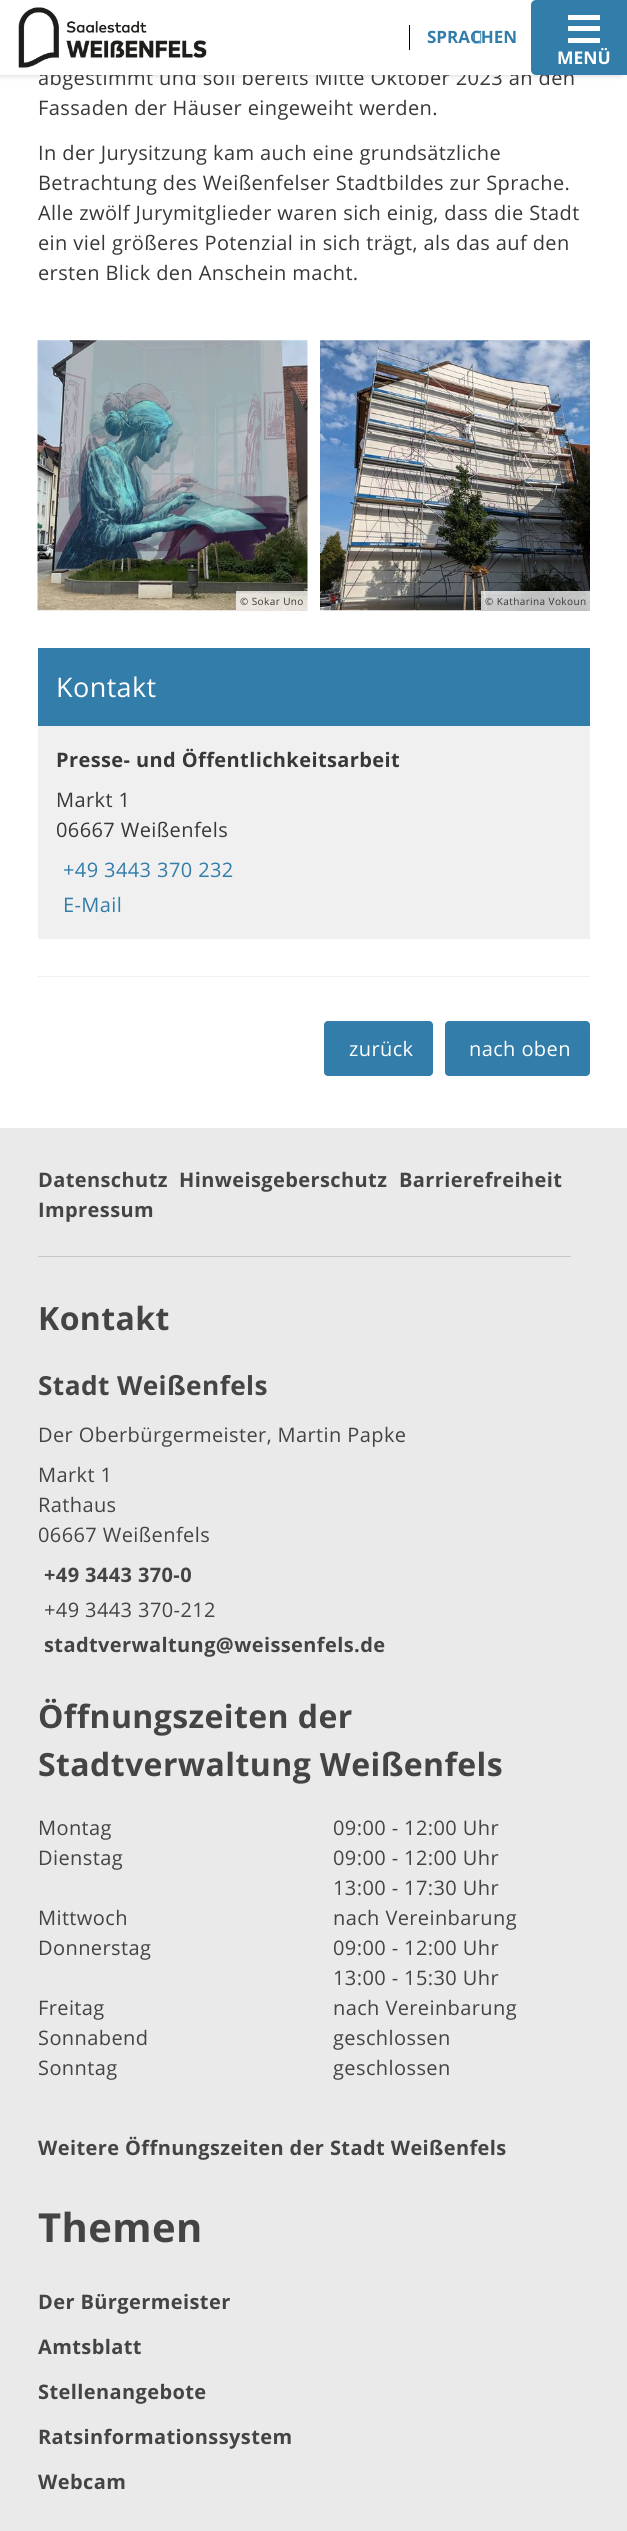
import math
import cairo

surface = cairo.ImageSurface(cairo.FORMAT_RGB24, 627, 2531)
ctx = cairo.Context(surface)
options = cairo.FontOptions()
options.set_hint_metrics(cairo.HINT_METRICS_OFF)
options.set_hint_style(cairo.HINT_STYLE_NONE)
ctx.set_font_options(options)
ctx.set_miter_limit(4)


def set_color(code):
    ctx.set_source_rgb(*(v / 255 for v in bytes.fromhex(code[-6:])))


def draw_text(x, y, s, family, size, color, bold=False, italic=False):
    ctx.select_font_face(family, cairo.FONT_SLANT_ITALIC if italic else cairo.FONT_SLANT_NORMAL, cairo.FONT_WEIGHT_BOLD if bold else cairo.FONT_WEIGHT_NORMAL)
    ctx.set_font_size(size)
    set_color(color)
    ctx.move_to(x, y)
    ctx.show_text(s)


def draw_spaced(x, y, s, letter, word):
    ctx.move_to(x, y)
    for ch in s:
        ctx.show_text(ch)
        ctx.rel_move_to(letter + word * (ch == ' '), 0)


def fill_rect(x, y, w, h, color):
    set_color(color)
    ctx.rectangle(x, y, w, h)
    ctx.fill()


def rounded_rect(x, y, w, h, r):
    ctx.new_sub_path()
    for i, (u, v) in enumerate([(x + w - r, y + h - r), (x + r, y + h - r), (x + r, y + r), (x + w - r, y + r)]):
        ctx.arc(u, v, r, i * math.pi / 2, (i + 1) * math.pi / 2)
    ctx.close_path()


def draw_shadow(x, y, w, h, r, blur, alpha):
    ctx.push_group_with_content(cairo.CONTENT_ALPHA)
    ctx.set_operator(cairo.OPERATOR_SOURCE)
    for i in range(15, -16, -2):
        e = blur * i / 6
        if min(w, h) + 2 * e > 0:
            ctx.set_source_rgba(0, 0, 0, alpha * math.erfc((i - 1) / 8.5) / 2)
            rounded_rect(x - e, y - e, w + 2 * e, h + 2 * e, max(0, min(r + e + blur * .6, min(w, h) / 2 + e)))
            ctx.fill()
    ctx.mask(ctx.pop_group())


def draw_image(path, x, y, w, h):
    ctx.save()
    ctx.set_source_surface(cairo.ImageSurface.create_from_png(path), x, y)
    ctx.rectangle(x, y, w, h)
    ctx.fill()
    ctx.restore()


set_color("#ffffff")
ctx.paint()
set_color("#000000")
draw_shadow(-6, 0, 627, 75, 0, 3, 0.2)
ctx.select_font_face("Open Sans")
ctx.set_font_size(20)
set_color("#383838")
draw_spaced(38, 85, "abgestimmt und soll bereits Mitte Oktober 2023 an den", 0.4, 0)
fill_rect(0, 0, 536, 75, "#ffffff")
draw_image("assets/img1.png", 18, 7, 189, 61)
fill_rect(409, 25, 1, 25, "#000000")
draw_text(427, 43, "SPRACHEN", "Open Sans", 17, "#327da9", bold=True)
draw_image("assets/img2.png", 474, 30, 8, 14)
rounded_rect(531, 0, 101, 75, 5)
ctx.fill()
fill_rect(568, 15, 32, 5, "#ffffff")
fill_rect(568, 26, 32, 5, "#ffffff")
fill_rect(568, 38, 32, 5, "#ffffff")
draw_text(557, 64, "MENÜ", "Open Sans", 17.5, "#ffffff", bold=True)
ctx.select_font_face("Open Sans")
ctx.set_font_size(20)
set_color("#383838")
draw_spaced(38, 115, "Fassaden der Häuser eingeweiht werden.", 0.4, 0)
draw_spaced(38, 160, "In der Jurysitzung kam auch eine grundsätzliche", 0.4, 0)
draw_spaced(38, 190, "Betrachtung des Weißenfelser Stadtbildes zur Sprache.", 0.4, 0)
draw_spaced(38, 220, "Alle zwölf Jurymitglieder waren sich einig, dass die Stadt", 0.4, 0)
draw_spaced(38, 250, "ein viel größeres Potenzial in sich trägt, als das auf den", 0.4, 0)
draw_spaced(38, 280, "ersten Blick den Anschein macht.", 0.4, 0)
draw_image("assets/img3.png", 37, 340, 271, 271)
ctx.set_source_rgba(1, 1, 1, 0.75)
ctx.rectangle(236, 591, 72, 19)
ctx.fill()
ctx.set_font_size(10)
set_color("#383838")
draw_spaced(240, 605, "© Sokar Uno", 0.4, 0)
draw_image("assets/img4.png", 320, 340, 270, 271)
ctx.set_source_rgba(1, 1, 1, 0.75)
ctx.rectangle(481, 591, 109, 19)
ctx.fill()
set_color("#383838")
draw_spaced(485, 605, "© Katharina Vokoun", 0.4, 0)
fill_rect(38, 726, 552, 213, "#f0f0f0")
fill_rect(38, 648, 552, 78, "#327da9")
ctx.set_font_size(27)
set_color("#ffffff")
draw_spaced(56, 697, "Kontakt", 0.4, 0)
ctx.select_font_face("Open Sans", cairo.FONT_SLANT_NORMAL, cairo.FONT_WEIGHT_BOLD)
ctx.set_font_size(20)
set_color("#383838")
draw_spaced(56, 767, "Presse- und Öffentlichkeitsarbeit", 0.4, 0)
ctx.select_font_face("Open Sans")
draw_spaced(56, 807, "Markt 1", 0.4, 0)
draw_spaced(56, 837, "06667 Weißenfels", 0.4, 0)
set_color("#327da9")
draw_spaced(63, 877, "+49 3443 370 232", 0.4, 0)
draw_spaced(63, 912, "E-Mail", 0.4, 0)
fill_rect(38, 976, 552, 1, "#f0f0f0")
set_color("#327da9")
rounded_rect(324, 1021, 109, 55, 4)
ctx.fill()
set_color("#ffffff")
draw_spaced(349, 1056, "zurück", 0.4, 0)
set_color("#327da9")
rounded_rect(445, 1021, 145, 55, 4)
ctx.fill()
set_color("#ffffff")
draw_spaced(469, 1056, "nach oben", 0.4, 0)
fill_rect(0, 1128, 627, 1403, "#eaeaea")
fill_rect(38, 1256, 533, 1, "#c7c7c7")
ctx.select_font_face("Open Sans", cairo.FONT_SLANT_NORMAL, cairo.FONT_WEIGHT_BOLD)
set_color("#444444")
draw_spaced(38, 1187, "Datenschutz", 0.4, 0)
draw_spaced(179, 1187, "Hinweisgeberschutz", 0.4, 0)
draw_spaced(399, 1187, "Barrierefreiheit", 0.4, 0)
draw_spaced(38, 1217, "Impressum", 0.4, 0)
ctx.set_font_size(32)
draw_spaced(38, 1330, "Kontakt", 0.4, 0)
ctx.set_font_size(26.25)
draw_spaced(38, 1395, "Stadt Weißenfels", 0.4, 0)
ctx.select_font_face("Open Sans")
ctx.set_font_size(20)
draw_spaced(38, 1442, "Der Oberbürgermeister, Martin Papke", 0.4, 0)
draw_spaced(38, 1482, "Markt 1", 0.4, 0)
draw_spaced(38, 1512, "Rathaus", 0.4, 0)
draw_spaced(38, 1542, "06667 Weißenfels", 0.4, 0)
ctx.select_font_face("Open Sans", cairo.FONT_SLANT_NORMAL, cairo.FONT_WEIGHT_BOLD)
draw_spaced(44, 1582, "+49 3443 370-0", 0.4, 0)
ctx.select_font_face("Open Sans")
draw_spaced(44, 1617, "+49 3443 370-212", 0.4, 0)
ctx.select_font_face("Open Sans", cairo.FONT_SLANT_NORMAL, cairo.FONT_WEIGHT_BOLD)
draw_spaced(44, 1652, "stadtverwaltung@weissenfels.de", 0.4, 0)
ctx.set_font_size(32)
draw_spaced(38, 1728, "Öffnungszeiten der", 0.4, 0)
draw_spaced(38, 1776, "Stadtverwaltung Weißenfels", 0.4, 0)
ctx.select_font_face("Open Sans")
ctx.set_font_size(20)
draw_spaced(38, 1835, "Montag", 0.4, 0)
draw_spaced(333, 1835, "09:00 - 12:00 Uhr", 0.4, 0)
draw_spaced(38, 1865, "Dienstag", 0.4, 0)
draw_spaced(333, 1865, "09:00 - 12:00 Uhr", 0.4, 0)
draw_spaced(333, 1895, "13:00 - 17:30 Uhr", 0.4, 0)
draw_spaced(38, 1925, "Mittwoch", 0.4, 0)
draw_spaced(333, 1925, "nach Vereinbarung", 0.4, 0)
draw_spaced(38, 1955, "Donnerstag", 0.4, 0)
draw_spaced(333, 1955, "09:00 - 12:00 Uhr", 0.4, 0)
draw_spaced(333, 1985, "13:00 - 15:30 Uhr", 0.4, 0)
draw_spaced(38, 2015, "Freitag", 0.4, 0)
draw_spaced(333, 2015, "nach Vereinbarung", 0.4, 0)
draw_spaced(38, 2045, "Sonnabend", 0.4, 0)
draw_spaced(333, 2045, "geschlossen", 0.4, 0)
draw_spaced(38, 2075, "Sonntag", 0.4, 0)
draw_spaced(333, 2075, "geschlossen", 0.4, 0)
ctx.select_font_face("Open Sans", cairo.FONT_SLANT_NORMAL, cairo.FONT_WEIGHT_BOLD)
draw_spaced(38, 2155, "Weitere Öffnungszeiten der Stadt Weißenfels", 0.4, 0)
ctx.set_font_size(40)
draw_spaced(38, 2242, "Themen", 0.4, 0)
ctx.set_font_size(20)
draw_spaced(38, 2309, "Der Bürgermeister", 0.4, 0)
draw_spaced(38, 2354, "Amtsblatt", 0.4, 0)
draw_spaced(38, 2399, "Stellenangebote", 0.4, 0)
draw_spaced(38, 2444, "Ratsinformationssystem", 0.4, 0)
draw_spaced(38, 2489, "Webcam", 0.4, 0)
surface.write_to_png("output.png")
